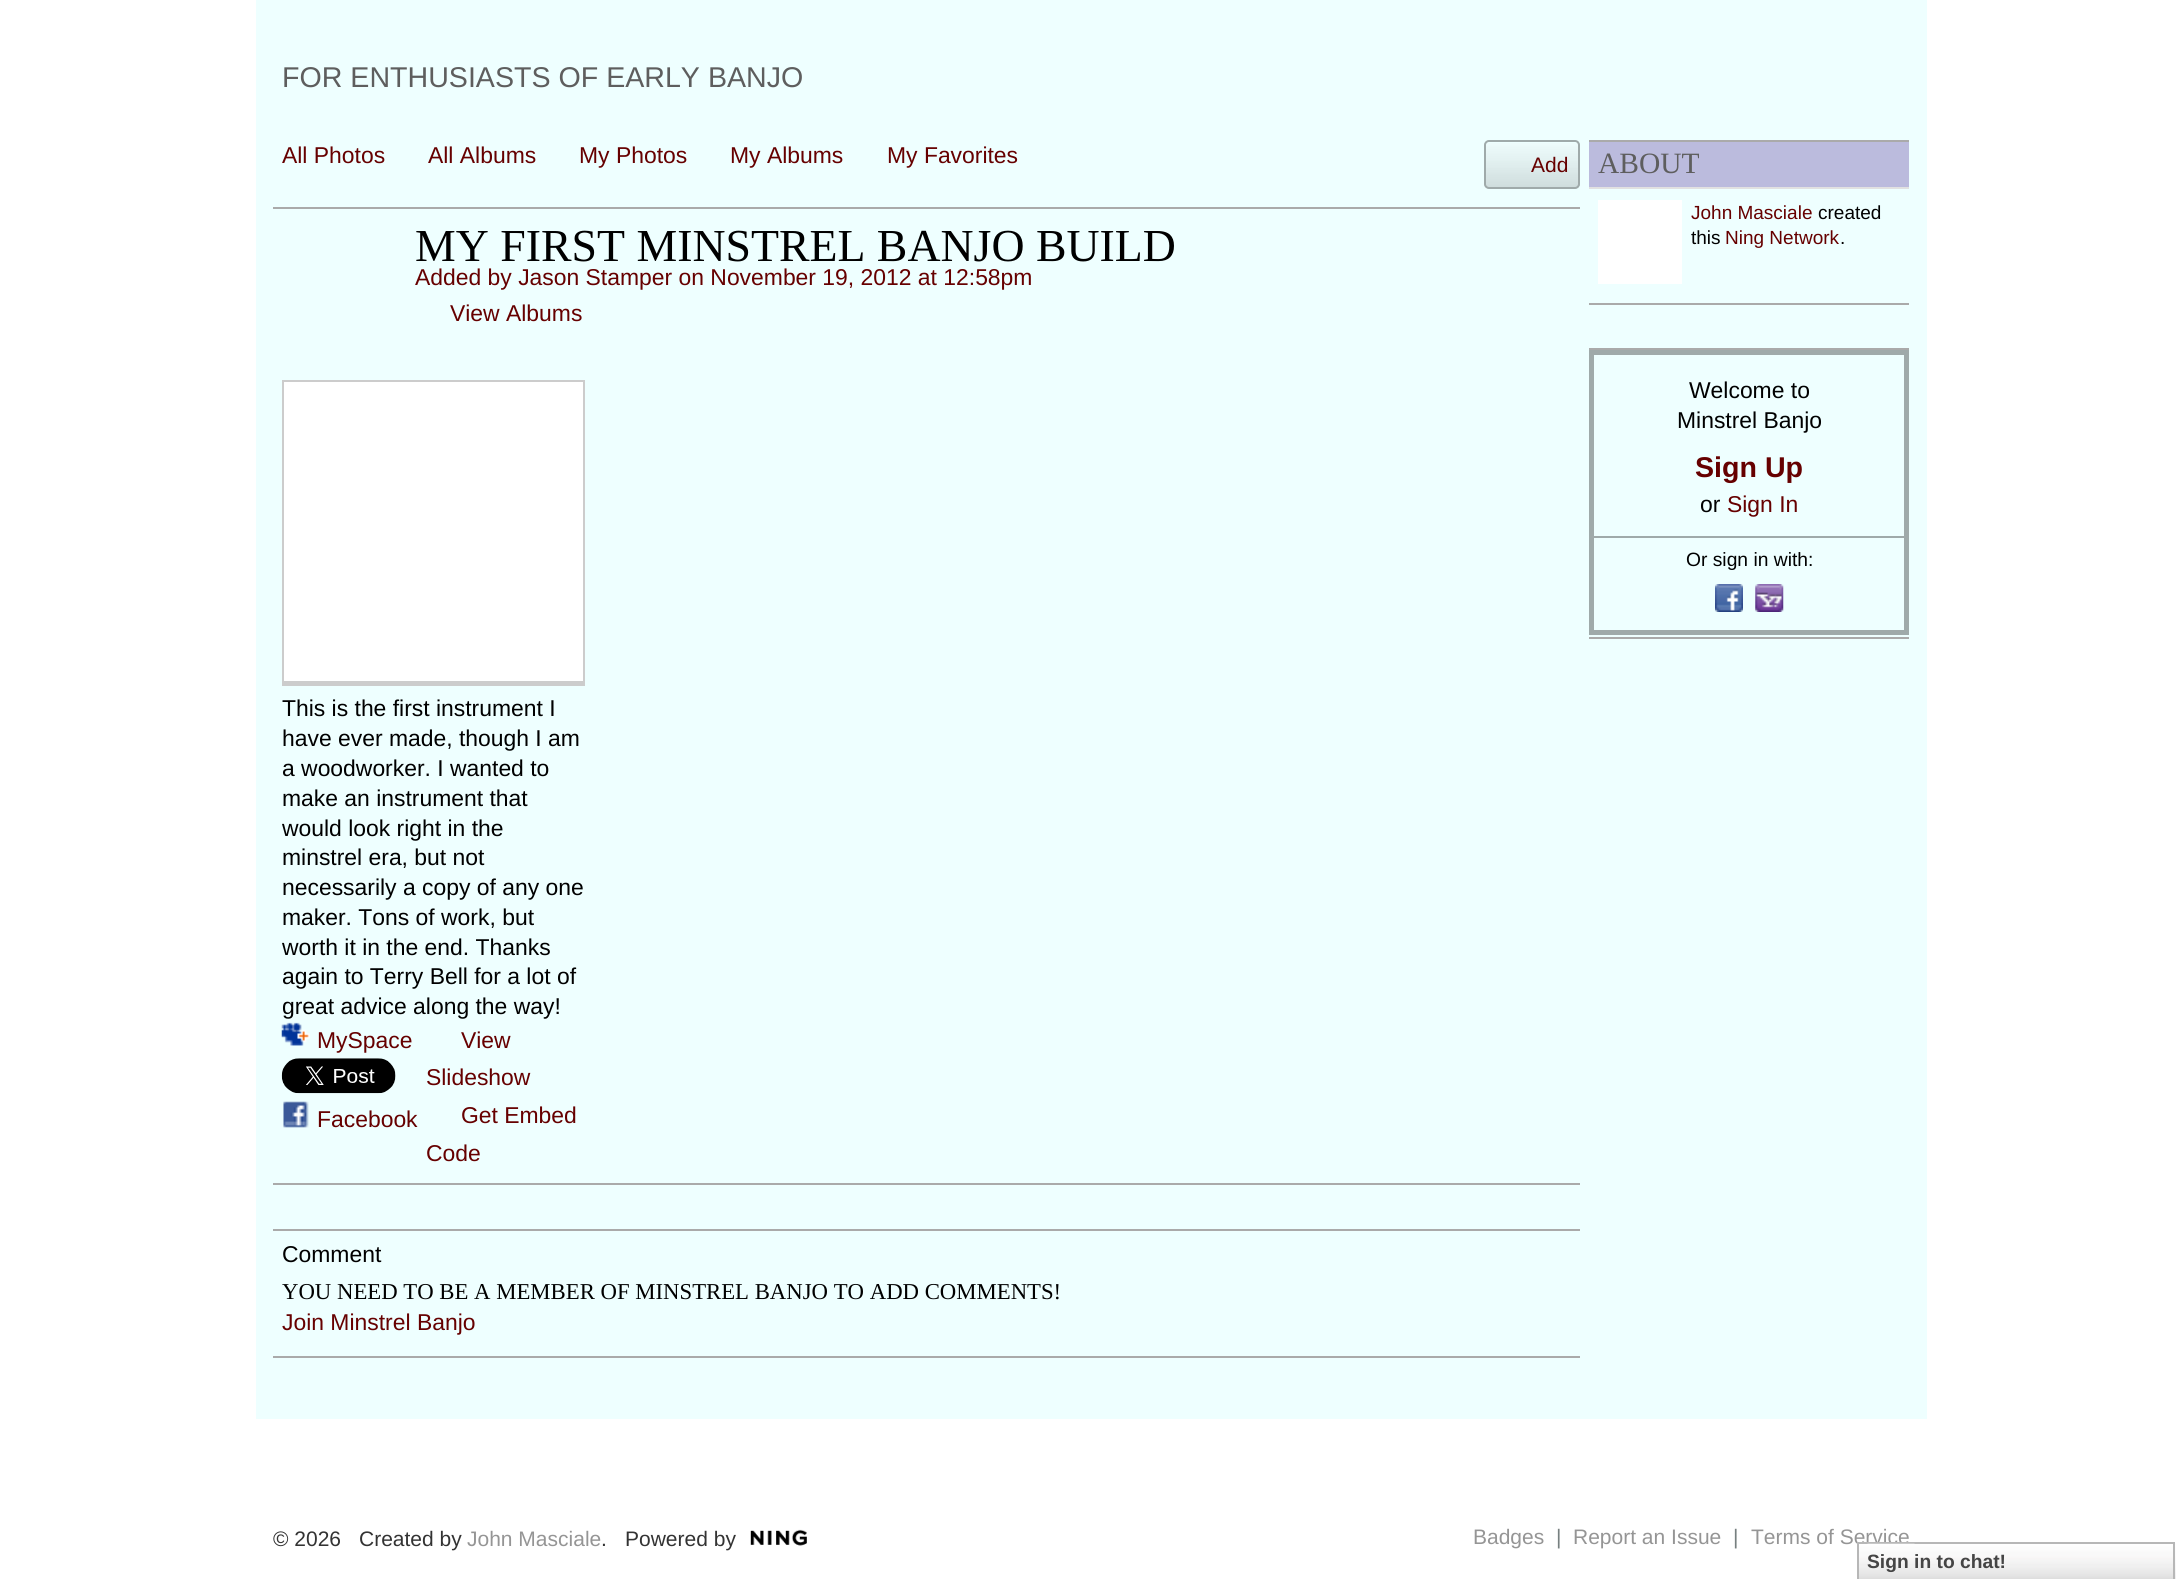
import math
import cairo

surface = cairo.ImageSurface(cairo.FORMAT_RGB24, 2182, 1579)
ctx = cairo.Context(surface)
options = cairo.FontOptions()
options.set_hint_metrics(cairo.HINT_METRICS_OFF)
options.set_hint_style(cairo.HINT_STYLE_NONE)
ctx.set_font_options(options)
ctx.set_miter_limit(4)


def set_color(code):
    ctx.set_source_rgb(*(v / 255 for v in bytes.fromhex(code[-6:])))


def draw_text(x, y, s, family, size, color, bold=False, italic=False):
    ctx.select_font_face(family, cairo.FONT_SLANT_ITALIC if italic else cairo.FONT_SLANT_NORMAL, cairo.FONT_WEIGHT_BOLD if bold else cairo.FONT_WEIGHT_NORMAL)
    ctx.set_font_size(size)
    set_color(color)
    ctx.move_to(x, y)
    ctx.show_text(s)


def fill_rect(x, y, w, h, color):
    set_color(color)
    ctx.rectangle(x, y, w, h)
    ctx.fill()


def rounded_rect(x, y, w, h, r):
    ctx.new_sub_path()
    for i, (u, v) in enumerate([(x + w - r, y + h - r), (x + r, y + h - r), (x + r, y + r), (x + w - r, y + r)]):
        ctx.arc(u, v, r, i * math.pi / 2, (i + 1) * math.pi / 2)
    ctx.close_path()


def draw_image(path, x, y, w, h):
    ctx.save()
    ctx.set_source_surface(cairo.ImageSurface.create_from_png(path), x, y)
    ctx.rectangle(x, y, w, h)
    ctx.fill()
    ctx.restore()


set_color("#ffffff")
ctx.paint()
fill_rect(256, 0, 1671, 1419, "#eeffff")
draw_text(282, 87, "FOR ENTHUSIASTS OF EARLY BANJO", "Liberation Sans", 28.6, "#5e5e5e")
draw_text(282, 163, "All Photos", "Liberation Sans", 22.9, "#660000")
draw_text(428, 163, "All Albums", "Liberation Sans", 22.9, "#660000")
draw_text(579, 163, "My Photos", "Liberation Sans", 22.9, "#660000")
draw_text(730, 163, "My Albums", "Liberation Sans", 22.9, "#660000")
draw_text(887, 163, "My Favorites", "Liberation Sans", 22.9, "#660000")
draw_image("assets/img1.png", 1484, 143, 96, 46)
rounded_rect(1485, 141, 94, 47, 4)
set_color("#9faaaa")
ctx.stroke()
draw_text(1531, 172, "Add", "Liberation Sans", 21, "#660000")
fill_rect(273, 207, 1307, 2, "#aaaaaa")
fill_rect(273, 1183, 1307, 2, "#aaaaaa")
draw_text(415, 261, "MY FIRST MINSTREL BANJO BUILD", "Liberation Serif", 45.8, "#000000")
draw_text(415, 285, "Added by Jason Stamper on November 19, 2012 at 12:58pm", "Liberation Sans", 22.9, "#660000")
draw_text(450, 321, "View Albums", "Liberation Sans", 22.9, "#660000")
fill_rect(284, 382, 299, 299, "#ffffff")
fill_rect(282, 380, 303, 2, "#cccccc")
fill_rect(583, 380, 2, 306, "#cccccc")
fill_rect(282, 681, 303, 5, "#cccccc")
fill_rect(282, 380, 2, 306, "#cccccc")
draw_text(282, 716, "This is the first instrument I", "Liberation Sans", 22.9, "#000000")
draw_text(282, 746, "have ever made, though I am", "Liberation Sans", 22.9, "#000000")
draw_text(282, 776, "a woodworker. I wanted to", "Liberation Sans", 22.9, "#000000")
draw_text(282, 806, "make an instrument that", "Liberation Sans", 22.9, "#000000")
draw_text(282, 836, "would look right in the", "Liberation Sans", 22.9, "#000000")
draw_text(282, 865, "minstrel era, but not", "Liberation Sans", 22.9, "#000000")
draw_text(282, 895, "necessarily a copy of any one", "Liberation Sans", 22.9, "#000000")
draw_text(282, 925, "maker. Tons of work, but", "Liberation Sans", 22.9, "#000000")
draw_text(282, 955, "worth it in the end. Thanks", "Liberation Sans", 22.9, "#000000")
draw_text(282, 984, "again to Terry Bell for a lot of", "Liberation Sans", 22.9, "#000000")
draw_text(282, 1014, "great advice along the way!", "Liberation Sans", 22.9, "#000000")
draw_image("assets/img2.png", 281, 1022, 29, 24)
draw_text(317, 1048, "MySpace", "Liberation Sans", 22.9, "#660000")
draw_image("assets/img3.png", 281, 1058, 115, 36)
draw_image("assets/img4.png", 283, 1101, 26, 27)
draw_text(317, 1127, "Facebook", "Liberation Sans", 22.9, "#660000")
draw_text(461, 1048, "View", "Liberation Sans", 22.9, "#660000")
draw_text(426, 1085, "Slideshow", "Liberation Sans", 22.9, "#660000")
draw_text(461, 1123, "Get Embed", "Liberation Sans", 22.9, "#660000")
draw_text(426, 1161, "Code", "Liberation Sans", 22.9, "#660000")
fill_rect(273, 1229, 1307, 2, "#aaaaaa")
fill_rect(273, 1356, 1307, 2, "#aaaaaa")
draw_text(282, 1262, "Comment", "Liberation Sans", 22.9, "#000000")
draw_text(282, 1299, "YOU NEED TO BE A MEMBER OF MINSTREL BANJO TO ADD COMMENTS!", "Liberation Serif", 22.75, "#000000")
draw_text(282, 1330, "Join Minstrel Banjo", "Liberation Sans", 22.9, "#660000")
fill_rect(1589, 140, 320, 2, "#aaaaaa")
fill_rect(1589, 303, 320, 2, "#aaaaaa")
fill_rect(1589, 142, 320, 45, "#bbbbdd")
fill_rect(1589, 187, 320, 2, "#e1e1e1")
ctx.save()
ctx.rectangle(1598, 147, 101, 35)
ctx.clip()
draw_text(1598, 173, "ABOUT", "Liberation Serif", 29.5, "#5e5e5e")
ctx.restore()
fill_rect(1598, 200, 84, 84, "#ffffff")
draw_text(1691, 219, "John Masciale", "Liberation Sans", 19, "#660000")
draw_text(1818, 219, "created", "Liberation Sans", 19, "#000000")
draw_text(1691, 244, "this", "Liberation Sans", 19, "#000000")
draw_text(1725, 244, "Ning Network", "Liberation Sans", 19, "#660000")
draw_text(1840, 244, ".", "Liberation Sans", 19, "#000000")
fill_rect(1589, 348, 320, 2, "#aaaaaa")
fill_rect(1589, 637, 320, 2, "#aaaaaa")
ctx.rectangle(1591.5, 352.5, 315, 280)
set_color("#9faaaa")
ctx.set_line_width(5)
ctx.stroke()
draw_text(1689, 398, "Welcome to", "Liberation Sans", 22.9, "#000000")
draw_text(1677, 428, "Minstrel Banjo", "Liberation Sans", 22.9, "#000000")
draw_text(1695, 477, "Sign Up", "Liberation Sans", 28.6, "#660000", bold=True)
draw_text(1700, 512, "or", "Liberation Sans", 22.9, "#000000")
draw_text(1727, 512, "Sign In", "Liberation Sans", 22.9, "#660000")
fill_rect(1594, 536, 310, 2, "#9faaaa")
draw_text(1686, 566, "Or sign in with:", "Liberation Sans", 19.25, "#000000")
draw_image("assets/img5.png", 1715, 584, 28, 28)
draw_image("assets/img6.png", 1755, 584, 29, 28)
draw_text(273, 1546, "© 2026", "Liberation Sans", 21, "#333333")
draw_text(359, 1546, "Created by", "Liberation Sans", 21, "#333333")
draw_text(467, 1546, "John Masciale", "Liberation Sans", 21, "#959595")
draw_text(601, 1546, ".", "Liberation Sans", 21, "#333333")
draw_text(625, 1546, "Powered by", "Liberation Sans", 21, "#333333")
draw_image("assets/img7.png", 750, 1529, 57, 17)
draw_text(1473, 1544, "Badges", "Liberation Sans", 21, "#959595")
draw_text(1556, 1544, "|", "Liberation Sans", 21, "#778080")
draw_text(1573, 1544, "Report an Issue", "Liberation Sans", 21, "#959595")
draw_text(1733, 1544, "|", "Liberation Sans", 21, "#778080")
draw_text(1751, 1544, "Terms of Service", "Liberation Sans", 21, "#959595")
draw_image("assets/img8.png", 1859, 1542, 317, 37)
ctx.rectangle(1858, 1543, 316, 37)
set_color("#b7b7b7")
ctx.set_line_width(2)
ctx.stroke()
draw_image("assets/img9.png", 1867, 1543, 48, 1)
draw_text(1867, 1568, "Sign in to chat!", "Liberation Sans", 19.25, "#454545", bold=True)
surface.write_to_png("output.png")
